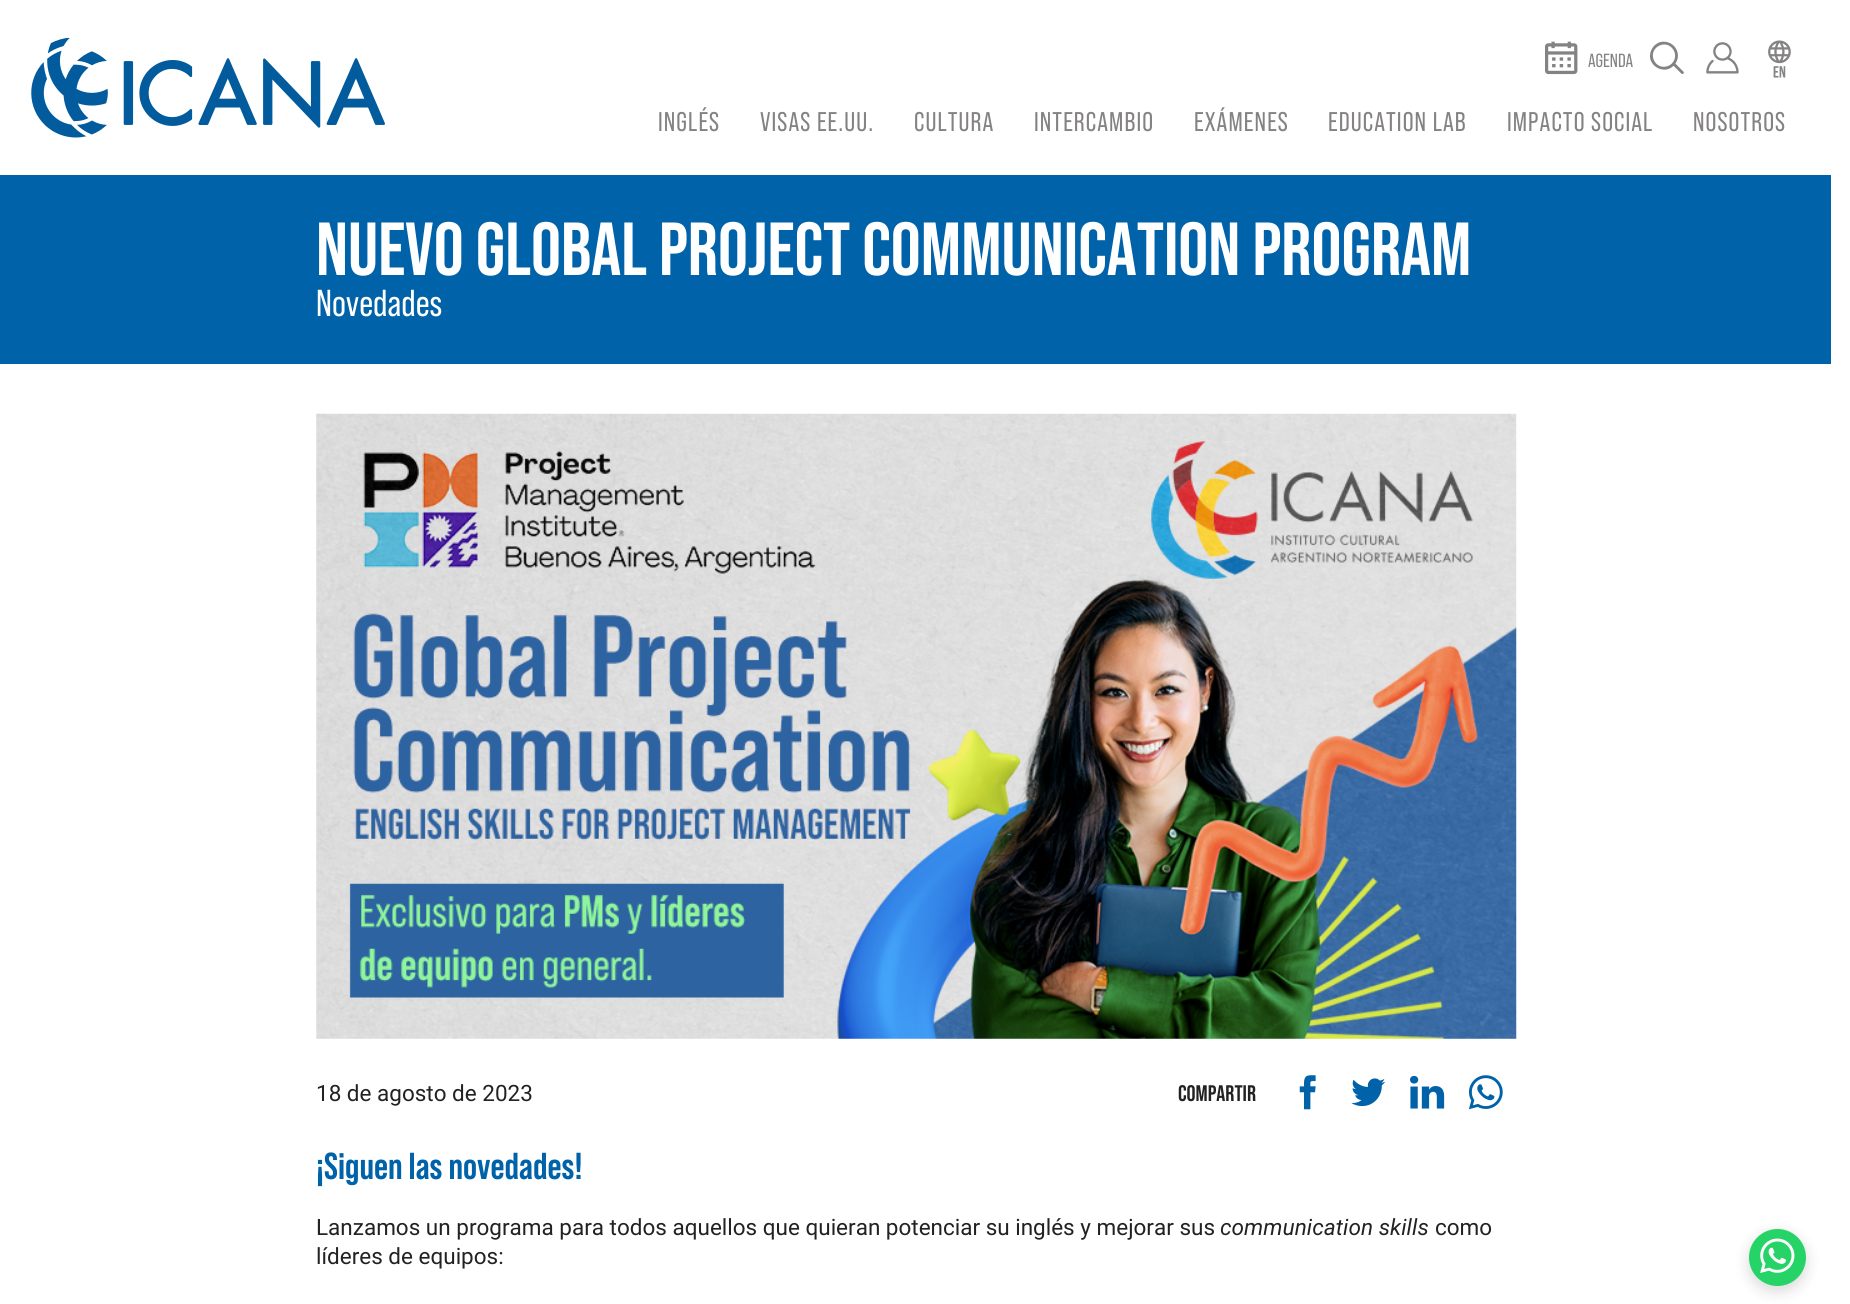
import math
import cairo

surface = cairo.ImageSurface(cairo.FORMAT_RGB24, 1850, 1304)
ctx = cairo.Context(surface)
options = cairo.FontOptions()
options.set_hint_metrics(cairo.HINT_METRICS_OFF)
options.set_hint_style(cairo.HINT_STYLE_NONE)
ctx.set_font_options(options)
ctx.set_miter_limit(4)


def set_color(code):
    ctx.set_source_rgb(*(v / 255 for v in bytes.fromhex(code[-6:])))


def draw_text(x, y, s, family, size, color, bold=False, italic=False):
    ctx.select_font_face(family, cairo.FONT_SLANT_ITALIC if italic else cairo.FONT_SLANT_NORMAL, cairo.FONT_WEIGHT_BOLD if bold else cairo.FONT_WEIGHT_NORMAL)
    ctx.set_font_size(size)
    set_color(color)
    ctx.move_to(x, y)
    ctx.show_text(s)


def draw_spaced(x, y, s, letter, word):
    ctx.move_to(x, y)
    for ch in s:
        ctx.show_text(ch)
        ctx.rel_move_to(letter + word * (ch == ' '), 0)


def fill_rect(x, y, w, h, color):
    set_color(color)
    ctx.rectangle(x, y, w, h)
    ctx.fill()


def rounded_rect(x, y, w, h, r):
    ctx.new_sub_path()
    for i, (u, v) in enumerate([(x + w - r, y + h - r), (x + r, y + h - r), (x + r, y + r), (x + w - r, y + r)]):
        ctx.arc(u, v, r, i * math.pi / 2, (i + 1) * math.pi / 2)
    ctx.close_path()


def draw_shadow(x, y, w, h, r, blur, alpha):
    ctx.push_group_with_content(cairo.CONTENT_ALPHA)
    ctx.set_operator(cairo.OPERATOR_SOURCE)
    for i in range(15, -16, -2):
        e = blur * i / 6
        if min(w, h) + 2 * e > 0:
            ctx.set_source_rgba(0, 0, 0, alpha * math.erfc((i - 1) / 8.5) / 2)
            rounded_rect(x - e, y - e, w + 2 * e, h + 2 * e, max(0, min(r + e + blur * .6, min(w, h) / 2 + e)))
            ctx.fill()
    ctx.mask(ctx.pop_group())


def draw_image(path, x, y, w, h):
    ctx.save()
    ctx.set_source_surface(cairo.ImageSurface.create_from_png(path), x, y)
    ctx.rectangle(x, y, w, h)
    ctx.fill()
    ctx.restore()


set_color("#ffffff")
ctx.paint()
draw_image("assets/img1.png", 31, 38, 354, 100)
draw_image("assets/img2.png", 1545, 41, 33, 34)
draw_text(1588, 67, "AGENDA", "Bebas Neue", 19, "#848283")
draw_image("assets/img3.png", 1650, 41, 34, 33)
draw_image("assets/img4.png", 1706, 42, 33, 32)
draw_image("assets/img5.png", 1768, 40, 23, 38)
ctx.set_font_size(27)
draw_spaced(658, 131, "INGLÉS", 1.1, 0)
draw_spaced(760, 131, "VISAS EE.UU.", 1.1, 0)
draw_spaced(914, 131, "CULTURA", 1.1, 0)
draw_spaced(1034, 131, "INTERCAMBIO", 1.1, 0)
draw_spaced(1194, 131, "EXÁMENES", 1.1, 0)
draw_spaced(1328, 131, "EDUCATION LAB", 1.1, 0)
draw_spaced(1507, 131, "IMPACTO SOCIAL", 1.1, 0)
draw_spaced(1693, 131, "NOSOTROS", 1.1, 0)
fill_rect(0, 175, 1831, 189, "#0062a9")
draw_text(316, 275, "NUEVO GLOBAL PROJECT COMMUNICATION PROGRAM", "Bebas Neue", 75, "#ffffff", bold=True)
draw_text(316, 316, "Novedades", "Bebas Neue", 37.5, "#ffffff")
draw_image("assets/img6.png", 316, 413, 1201, 626)
draw_text(316, 1101, "18 de agosto de 2023", "Roboto", 22.5, "#222222")
draw_text(1178, 1101, "COMPARTIR", "Bebas Neue", 22.5, "#222222", bold=True)
draw_image("assets/img7.png", 1299, 1075, 17, 35)
draw_image("assets/img8.png", 1351, 1078, 35, 29)
draw_image("assets/img9.png", 1410, 1075, 35, 34)
draw_image("assets/img10.png", 1468, 1075, 35, 35)
draw_text(316, 1179, "¡Siguen las novedades!", "Bebas Neue", 37.5, "#0062a9", bold=True)
draw_text(316, 1235, "Lanzamos un programa para todos aquellos que quieran potenciar su inglés y mejorar sus", "Roboto", 22.5, "#222222")
draw_text(1220, 1235, "communication skills", "Roboto", 22.5, "#222222", italic=True)
draw_text(1435, 1235, "como", "Roboto", 22.5, "#222222")
draw_text(316, 1264, "líderes de equipos:", "Roboto", 22.5, "#222222")
set_color("#000000")
draw_shadow(1749, 1234, 57, 57, 28.5, 7.5, 0.15)
set_color("#25d366")
ctx.arc(1777.5, 1257.5, 28.5, 0, 2 * math.pi)
ctx.fill()
draw_image("assets/img11.png", 1760, 1238, 35, 35)
surface.write_to_png("output.png")
